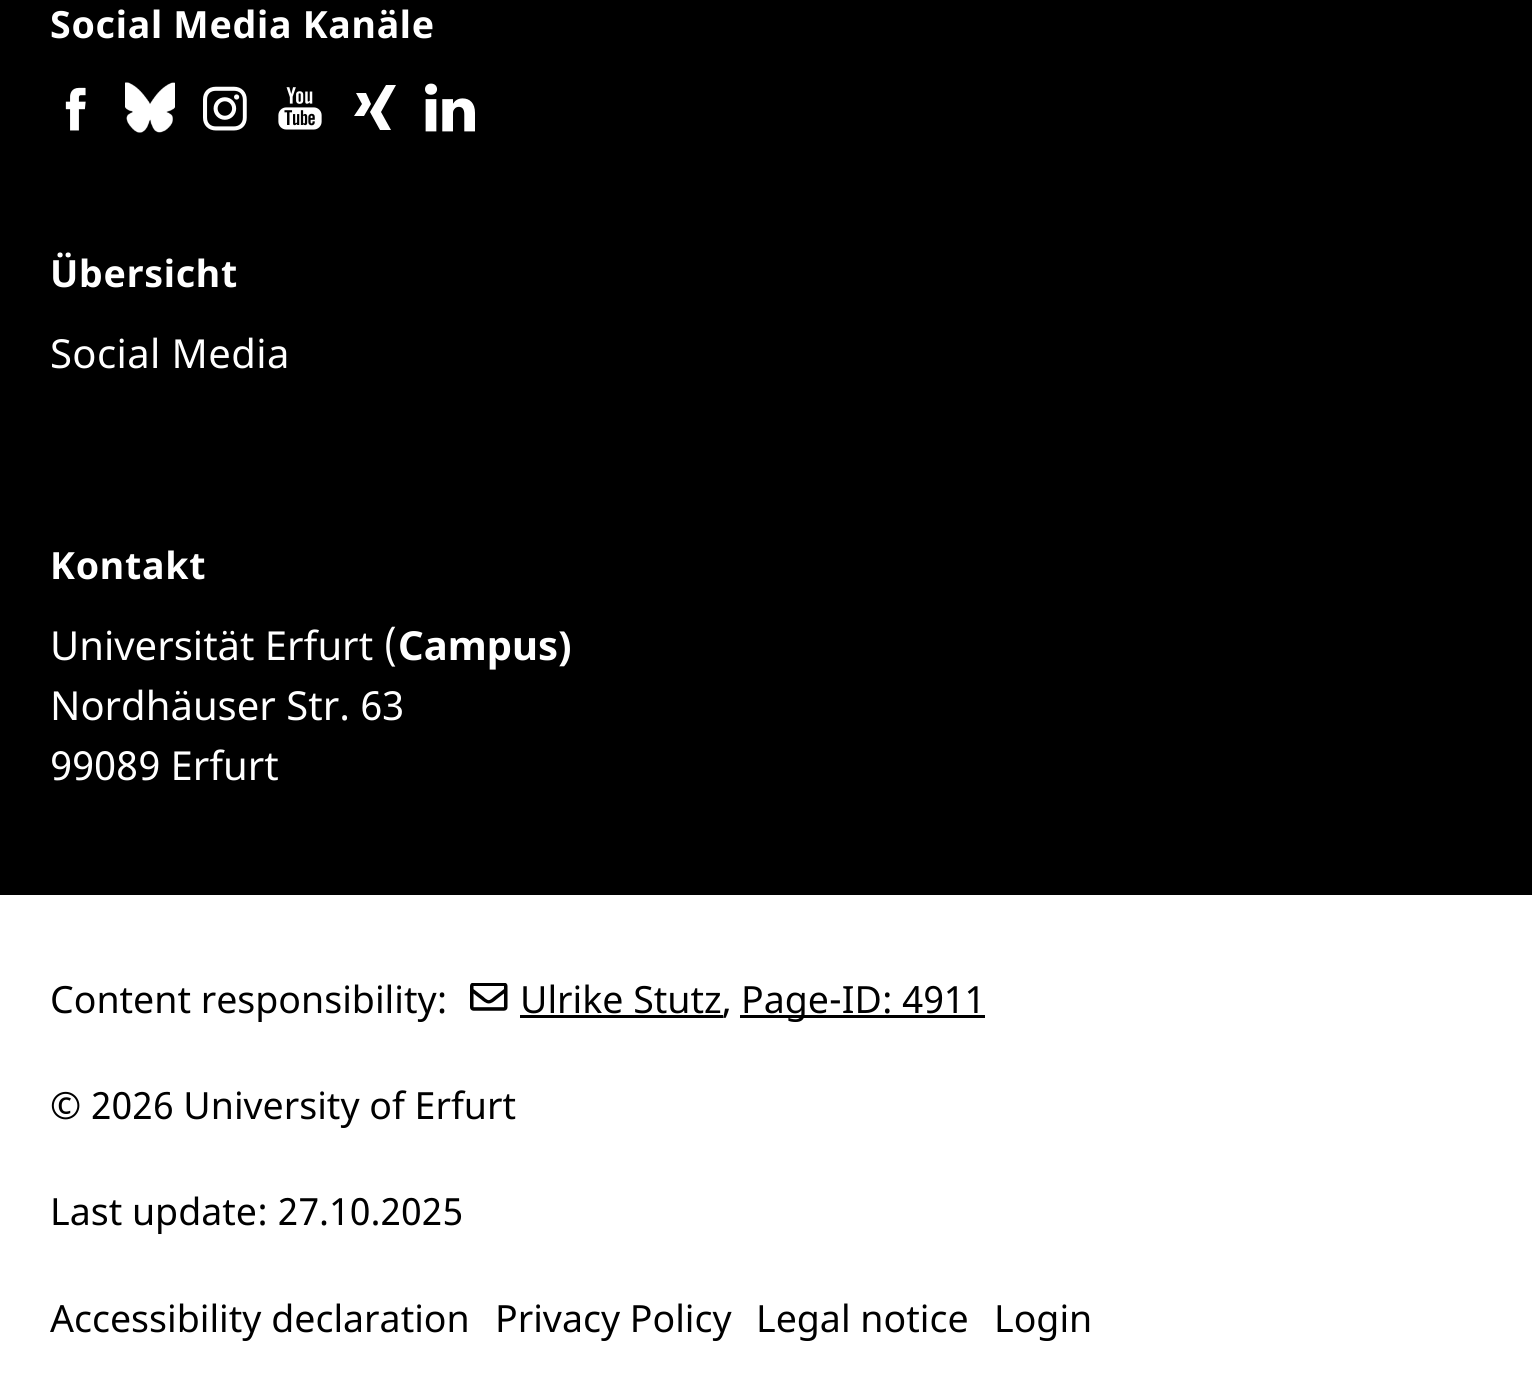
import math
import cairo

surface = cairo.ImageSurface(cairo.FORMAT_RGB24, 1532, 1381)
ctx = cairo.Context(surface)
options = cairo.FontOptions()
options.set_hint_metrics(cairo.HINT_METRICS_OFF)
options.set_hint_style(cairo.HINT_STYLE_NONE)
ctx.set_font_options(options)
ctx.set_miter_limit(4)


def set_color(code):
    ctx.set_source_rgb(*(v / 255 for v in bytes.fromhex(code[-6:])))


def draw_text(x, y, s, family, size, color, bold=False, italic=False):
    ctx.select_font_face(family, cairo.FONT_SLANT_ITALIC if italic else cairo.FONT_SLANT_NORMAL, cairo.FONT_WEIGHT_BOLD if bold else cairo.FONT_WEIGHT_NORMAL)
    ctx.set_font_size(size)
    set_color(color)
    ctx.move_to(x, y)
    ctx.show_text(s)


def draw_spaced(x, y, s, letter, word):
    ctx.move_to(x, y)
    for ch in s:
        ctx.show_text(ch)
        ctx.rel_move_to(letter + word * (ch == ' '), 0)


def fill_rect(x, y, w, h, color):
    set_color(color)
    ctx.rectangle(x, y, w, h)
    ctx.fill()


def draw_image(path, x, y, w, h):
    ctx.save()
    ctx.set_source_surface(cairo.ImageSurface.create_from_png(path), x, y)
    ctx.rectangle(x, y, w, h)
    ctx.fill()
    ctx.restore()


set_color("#ffffff")
ctx.paint()
fill_rect(0, 0, 1532, 895, "#000000")
ctx.select_font_face("Noto Sans", cairo.FONT_SLANT_NORMAL, cairo.FONT_WEIGHT_BOLD)
ctx.set_font_size(37.5)
set_color("#ffffff")
draw_spaced(50, 38, "Social Media Kanäle", 0.75, 0)
draw_image("assets/img1.png", 65, 87, 21, 44)
draw_image("assets/img2.png", 125, 82, 50, 51)
draw_image("assets/img3.png", 203, 86, 44, 45)
draw_image("assets/img4.png", 278, 87, 44, 43)
ctx.new_path()
ctx.move_to(380, 130)
ctx.line_to(370, 112)
ctx.line_to(386, 85)
ctx.line_to(396, 85)
ctx.line_to(381, 112)
ctx.line_to(391, 130)
ctx.close_path()
ctx.move_to(364, 116)
ctx.line_to(371, 104)
ctx.line_to(366, 93)
ctx.line_to(356, 93)
ctx.line_to(362, 104)
ctx.line_to(354, 116)
ctx.close_path()
ctx.fill()
draw_image("assets/img5.png", 425, 83, 50, 49)
draw_spaced(50, 287, "Übersicht", 0.75, 0)
ctx.select_font_face("Noto Sans")
ctx.set_font_size(40)
draw_spaced(50, 368, "Social Media", 0.4, 0)
ctx.select_font_face("Noto Sans", cairo.FONT_SLANT_NORMAL, cairo.FONT_WEIGHT_BOLD)
ctx.set_font_size(37.5)
draw_spaced(50, 579, "Kontakt", 0.75, 0)
draw_text(50, 660, "Universität Erfurt (", "Noto Sans", 40, "#ffffff")
draw_text(398, 660, "Campus)", "Noto Sans", 40, "#ffffff", bold=True)
draw_text(50, 720, "Nordhäuser Str. 63", "Noto Sans", 40, "#ffffff")
draw_text(50, 780, "99089 Erfurt", "Noto Sans", 40, "#ffffff")
draw_text(50, 1013, "Content responsibility:", "Noto Sans", 37.5, "#000000")
draw_image("assets/img6.png", 470, 983, 38, 28)
draw_text(520, 1013, "Ulrike Stutz", "Noto Sans", 37.5, "#000000")
fill_rect(520, 1015, 203, 3, "#000000")
draw_text(722, 1013, ",", "Noto Sans", 37.5, "#000000")
fill_rect(740, 1015, 245, 3, "#000000")
draw_text(741, 1013, "Page-ID: 4911", "Noto Sans", 37.5, "#000000")
draw_text(50, 1119, "© 2026 University of Erfurt", "Noto Sans", 37.5, "#000000")
draw_text(50, 1225, "Last update: 27.10.2025", "Noto Sans", 37.5, "#000000")
draw_text(50, 1332, "Accessibility declaration", "Noto Sans", 37.5, "#000000")
draw_text(495, 1332, "Privacy Policy", "Noto Sans", 37.5, "#000000")
draw_text(756, 1332, "Legal notice", "Noto Sans", 37.5, "#000000")
draw_text(994, 1332, "Login", "Noto Sans", 37.5, "#000000")
surface.write_to_png("output.png")
